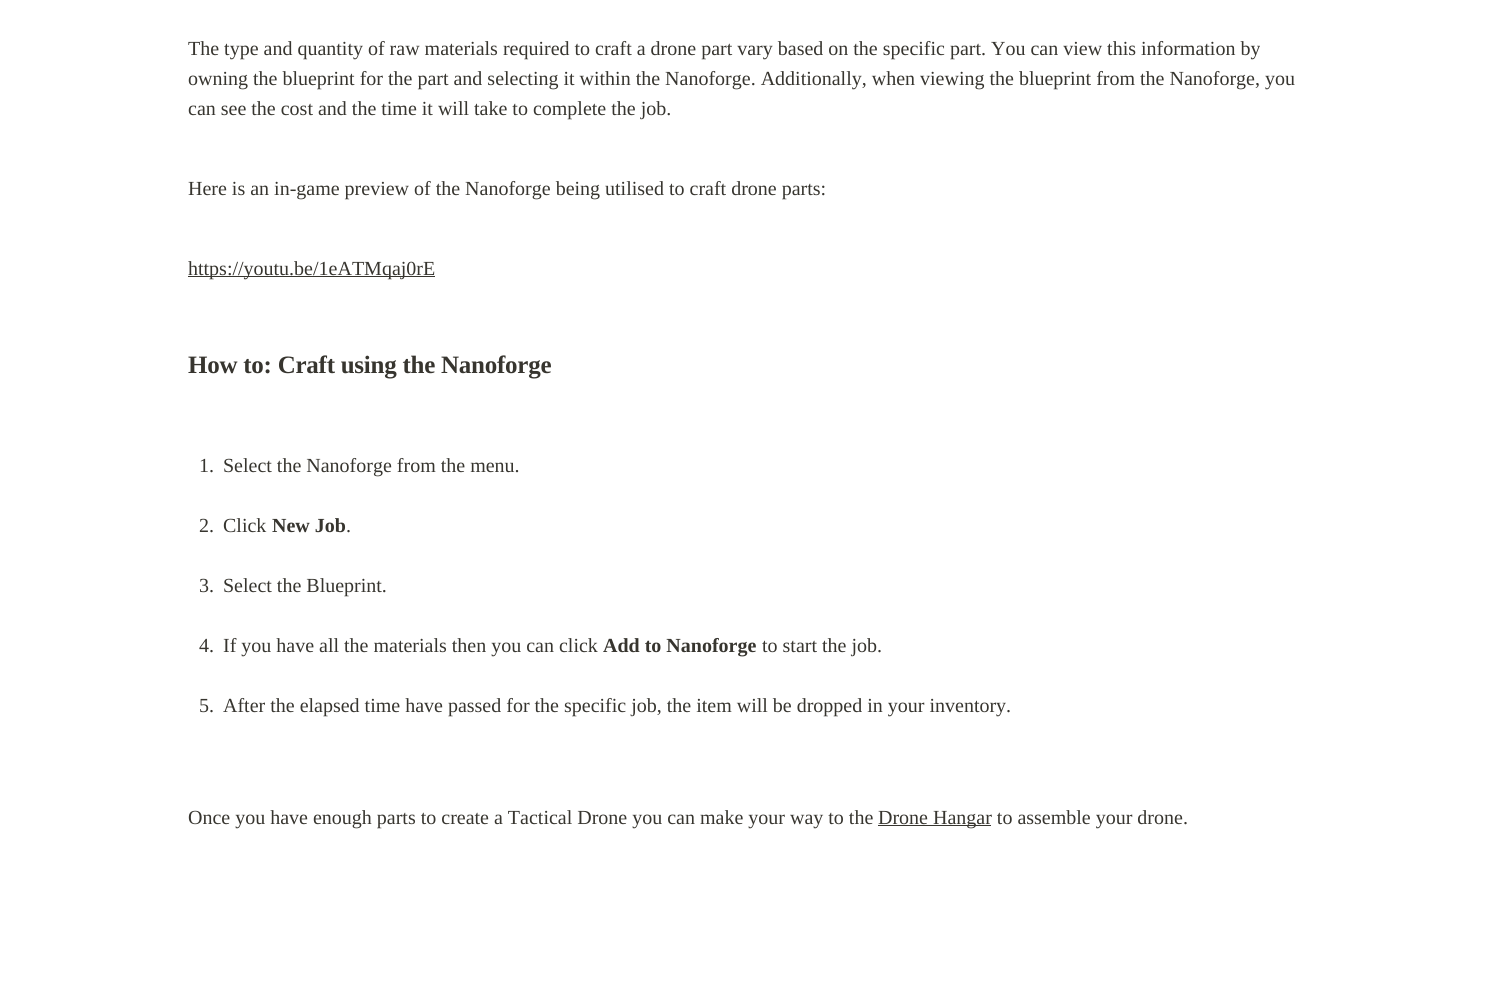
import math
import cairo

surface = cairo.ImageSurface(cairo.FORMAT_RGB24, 1499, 1002)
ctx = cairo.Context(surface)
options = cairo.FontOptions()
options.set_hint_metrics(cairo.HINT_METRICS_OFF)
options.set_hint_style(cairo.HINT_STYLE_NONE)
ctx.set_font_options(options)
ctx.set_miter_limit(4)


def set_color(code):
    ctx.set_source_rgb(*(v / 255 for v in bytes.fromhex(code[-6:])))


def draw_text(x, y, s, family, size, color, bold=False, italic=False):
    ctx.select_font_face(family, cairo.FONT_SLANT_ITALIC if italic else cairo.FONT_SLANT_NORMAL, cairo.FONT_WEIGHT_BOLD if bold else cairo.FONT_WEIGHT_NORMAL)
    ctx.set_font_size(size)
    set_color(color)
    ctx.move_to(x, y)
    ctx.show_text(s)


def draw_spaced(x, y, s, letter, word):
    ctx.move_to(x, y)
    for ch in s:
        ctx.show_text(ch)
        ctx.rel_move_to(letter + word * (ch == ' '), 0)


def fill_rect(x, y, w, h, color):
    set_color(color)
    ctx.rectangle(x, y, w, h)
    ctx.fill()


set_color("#ffffff")
ctx.paint()
draw_text(188, 55, "The type and quantity of raw materials required to craft a drone part vary based on the specific part. You can view this information by", "Liberation Serif", 20, "#37352f")
draw_text(188, 85, "owning the blueprint for the part and selecting it within the Nanoforge. Additionally, when viewing the blueprint from the Nanoforge, you", "Liberation Serif", 20, "#37352f")
draw_text(188, 115, "can see the cost and the time it will take to complete the job.", "Liberation Serif", 20, "#37352f")
draw_text(188, 195, "Here is an in-game preview of the Nanoforge being utilised to craft drone parts:", "Liberation Serif", 20, "#37352f")
fill_rect(188, 276, 247, 1, "#37352f")
draw_text(188, 275, "https://youtu.be/1eATMqaj0rE", "Liberation Serif", 20, "#37352f")
ctx.select_font_face("Liberation Serif", cairo.FONT_SLANT_NORMAL, cairo.FONT_WEIGHT_BOLD)
ctx.set_font_size(25)
draw_spaced(188, 373, "How to: Craft using the Nanoforge", -0.25, 0)
draw_text(199, 472, "1.", "Liberation Serif", 20, "#37352f")
draw_text(223, 472, "Select the Nanoforge from the menu.", "Liberation Serif", 20, "#37352f")
draw_text(199, 532, "2.", "Liberation Serif", 20, "#37352f")
draw_text(223, 532, "Click", "Liberation Serif", 20, "#37352f")
draw_text(272, 532, "New Job", "Liberation Serif", 20, "#37352f", bold=True)
draw_text(346, 532, ".", "Liberation Serif", 20, "#37352f")
draw_text(199, 592, "3.", "Liberation Serif", 20, "#37352f")
draw_text(223, 592, "Select the Blueprint.", "Liberation Serif", 20, "#37352f")
draw_text(199, 652, "4.", "Liberation Serif", 20, "#37352f")
draw_text(223, 652, "If you have all the materials then you can click", "Liberation Serif", 20, "#37352f")
draw_text(603, 652, "Add to Nanoforge", "Liberation Serif", 20, "#37352f", bold=True)
draw_text(762, 652, "to start the job.", "Liberation Serif", 20, "#37352f")
draw_text(199, 712, "5.", "Liberation Serif", 20, "#37352f")
draw_text(223, 712, "After the elapsed time have passed for the specific job, the item will be dropped in your inventory.", "Liberation Serif", 20, "#37352f")
draw_text(188, 824, "Once you have enough parts to create a Tactical Drone you can make your way to the", "Liberation Serif", 20, "#37352f")
fill_rect(878, 825, 113, 1, "#37352f")
draw_text(878, 824, "Drone Hangar to assemble your drone.", "Liberation Serif", 20, "#37352f")
surface.write_to_png("output.png")
